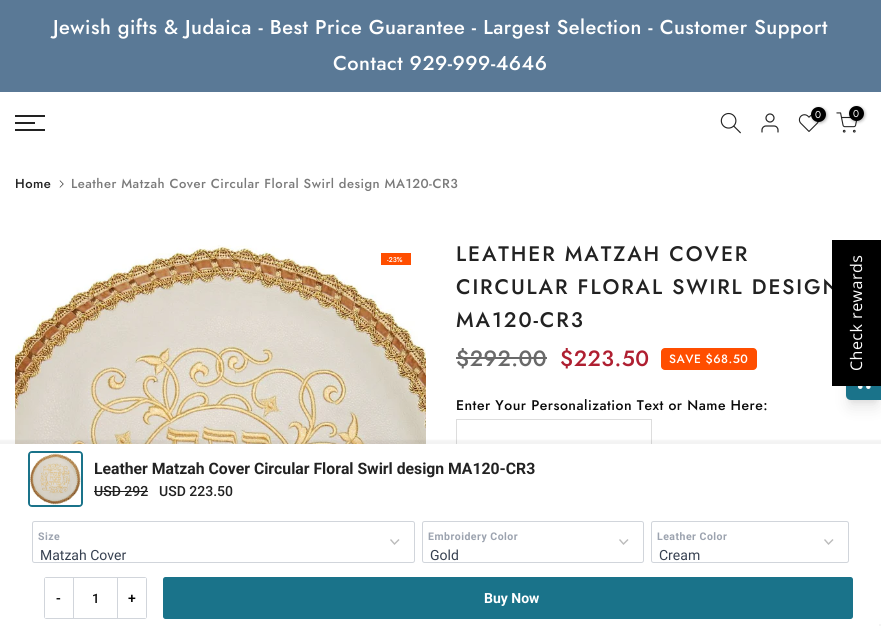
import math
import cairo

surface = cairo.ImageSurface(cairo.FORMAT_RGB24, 881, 626)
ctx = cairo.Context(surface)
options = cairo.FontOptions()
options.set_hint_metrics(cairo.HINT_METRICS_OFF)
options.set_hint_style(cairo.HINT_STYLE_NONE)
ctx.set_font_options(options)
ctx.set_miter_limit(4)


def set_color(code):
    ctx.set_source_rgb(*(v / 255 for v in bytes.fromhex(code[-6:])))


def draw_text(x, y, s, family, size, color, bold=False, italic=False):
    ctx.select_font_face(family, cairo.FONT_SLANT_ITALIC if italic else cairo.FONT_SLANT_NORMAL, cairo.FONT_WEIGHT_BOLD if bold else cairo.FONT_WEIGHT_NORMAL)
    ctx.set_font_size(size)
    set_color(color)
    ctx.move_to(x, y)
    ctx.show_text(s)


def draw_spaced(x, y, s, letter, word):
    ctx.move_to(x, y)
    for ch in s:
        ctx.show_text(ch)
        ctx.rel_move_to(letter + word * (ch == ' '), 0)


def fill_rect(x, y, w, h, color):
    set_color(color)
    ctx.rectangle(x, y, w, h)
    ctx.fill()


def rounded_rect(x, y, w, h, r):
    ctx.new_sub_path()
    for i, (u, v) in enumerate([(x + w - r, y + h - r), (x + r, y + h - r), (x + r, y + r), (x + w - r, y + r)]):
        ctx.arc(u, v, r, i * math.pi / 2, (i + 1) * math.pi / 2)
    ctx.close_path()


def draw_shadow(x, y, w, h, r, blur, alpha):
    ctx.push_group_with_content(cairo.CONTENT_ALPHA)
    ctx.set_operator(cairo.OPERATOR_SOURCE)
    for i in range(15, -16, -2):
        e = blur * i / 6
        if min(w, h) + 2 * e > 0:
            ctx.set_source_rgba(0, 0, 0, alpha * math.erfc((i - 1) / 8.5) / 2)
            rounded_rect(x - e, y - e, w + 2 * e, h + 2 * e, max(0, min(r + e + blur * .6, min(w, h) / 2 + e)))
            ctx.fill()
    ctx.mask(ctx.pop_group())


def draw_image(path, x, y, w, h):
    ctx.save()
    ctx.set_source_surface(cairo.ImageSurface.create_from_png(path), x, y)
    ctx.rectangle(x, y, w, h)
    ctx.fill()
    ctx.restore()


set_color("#ffffff")
ctx.paint()
fill_rect(0, 0, 881, 92, "#5a7996")
ctx.select_font_face("Jost Medium")
ctx.set_font_size(20)
set_color("#ffffff")
draw_spaced(53, 34, "Jewish gifts & Judaica - Best Price Guarantee - Largest Selection - Customer Support", 0.5, 0)
draw_spaced(333, 70, "Contact 929-999-4646", 0.5, 0)
draw_image("assets/img1.png", 720, 112, 21, 22)
draw_image("assets/img2.png", 761, 113, 18, 20)
draw_image("assets/img3.png", 798, 114, 21, 18)
set_color("#000000")
draw_shadow(812, 108, 15, 15, 7.5, 1.5, 0.3)
set_color("#000000")
ctx.arc(818.5, 114.5, 7.5, 0, 2 * math.pi)
ctx.fill()
draw_text(815, 118, "0", "Jost", 10, "#ffffff")
draw_image("assets/img4.png", 836, 112, 22, 21)
set_color("#000000")
draw_shadow(850, 107, 15, 15, 7.5, 1.5, 0.3)
set_color("#000000")
ctx.arc(856.5, 113.5, 7.5, 0, 2 * math.pi)
ctx.fill()
draw_text(853, 117, "0", "Jost", 10, "#ffffff")
fill_rect(15, 115, 30, 2, "#222222")
fill_rect(15, 122, 20, 2, "#222222")
fill_rect(15, 129, 30, 2, "#222222")
ctx.select_font_face("Jost Medium")
ctx.set_font_size(13)
draw_spaced(15, 188, "Home", 0.5, 0)
draw_image("assets/img5.png", 59, 180, 5, 8)
set_color("#7a7a7a")
draw_spaced(71, 188, "Leather Matzah Cover Circular Floral Swirl design MA120-CR3", 0.5, 0)
draw_image("assets/img6.png", 15, 245, 411, 199)
fill_rect(381, 253, 30, 12, "#ff4e00")
draw_text(387, 262, "-23%", "Jost Medium", 7, "#ffffff")
ctx.set_font_size(21)
set_color("#222222")
draw_spaced(456, 261, "LEATHER MATZAH COVER", 1.9, 0)
draw_spaced(456, 294, "CIRCULAR FLORAL SWIRL DESIGN", 1.9, 0)
draw_spaced(456, 327, "MA120-CR3", 1.9, 0)
ctx.set_font_size(22)
set_color("#696969")
draw_spaced(456, 366, "$292.00", 0.5, 0)
fill_rect(456, 357, 91, 2, "#696969")
set_color("#af1f31")
draw_spaced(560, 366, "$223.50", 0.5, 0)
set_color("#ff4e00")
rounded_rect(661, 348, 96, 22, 4)
ctx.fill()
ctx.set_font_size(12)
set_color("#ffffff")
draw_spaced(669, 363, "SAVE $68.50", 0.5, 0)
ctx.set_font_size(14)
set_color("#0a0a0a")
draw_spaced(456, 410, "Enter Your Personalization Text or Name Here:", 0.5, 0)
ctx.rectangle(456.5, 419.5, 195, 44)
set_color("#dddddd")
ctx.set_line_width(1)
ctx.stroke()
set_color("#000000")
draw_shadow(850, 366, 27, 34, 1, 3, 0.1)
draw_shadow(849, 371, 29, 36, 2, 7.5, 0.1)
set_color("#1a738a")
ctx.new_path()
ctx.move_to(851, 358)
ctx.line_to(881, 358)
ctx.line_to(881, 400)
ctx.line_to(851, 400)
ctx.curve_to(848, 400, 846, 398, 846, 395)
ctx.line_to(846, 363)
ctx.curve_to(846, 360, 848, 358, 851, 358)
ctx.close_path()
ctx.fill()
fill_rect(832, 240, 49, 146, "#000000")
ctx.select_font_face("Open Sans")
ctx.set_font_size(16)
set_color("#ffffff")
ctx.save()
ctx.translate(862, 371)
ctx.rotate(-90 * math.pi / 180)
draw_spaced(0, 0, "Check rewards", 0.5, 0)
ctx.restore()
draw_image("assets/img7.png", 858, 386, 13, 3)
set_color("#000000")
draw_shadow(-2, 440, 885, 186, 0, 1, 0.05)
fill_rect(0, 444, 881, 182, "#ffffff")
rounded_rect(29, 452, 53, 54, 3)
set_color("#1a738a")
ctx.set_line_width(2)
ctx.stroke()
draw_image("assets/img8.png", 30, 453, 51, 52)
draw_text(94, 474, "Leather Matzah Cover Circular Floral Swirl design MA120-CR3", "Roboto", 15.75, "#222222", bold=True)
draw_text(94, 496, "USD 292", "Roboto Medium", 14, "#222222")
fill_rect(94, 491, 54, 1, "#1e1e1e")
draw_text(159, 496, "USD 223.50", "Roboto Medium", 14, "#222222")
rounded_rect(32.5, 521.5, 382, 41, 2)
set_color("#d1d5db")
ctx.set_line_width(1)
ctx.stroke()
ctx.select_font_face("Roboto", cairo.FONT_SLANT_NORMAL, cairo.FONT_WEIGHT_BOLD)
ctx.set_font_size(10.5)
set_color("#9ca3af")
draw_spaced(38, 540, "Size", 0.5, 0)
ctx.new_path()
ctx.move_to(390.5, 539.5)
ctx.line_to(394.5, 544)
ctx.line_to(399, 539.5)
set_color("#bbbbbb")
ctx.set_line_width(1.4)
ctx.stroke()
draw_text(40, 560, "Matzah Cover", "Roboto", 14, "#374151")
rounded_rect(422.5, 521.5, 221, 41, 2)
set_color("#d1d5db")
ctx.set_line_width(1)
ctx.stroke()
ctx.select_font_face("Roboto", cairo.FONT_SLANT_NORMAL, cairo.FONT_WEIGHT_BOLD)
ctx.set_font_size(10.5)
set_color("#9ca3af")
draw_spaced(428, 540, "Embroidery Color", 0.5, 0)
ctx.new_path()
ctx.move_to(619.5, 539.5)
ctx.line_to(623.5, 544)
ctx.line_to(628, 539.5)
set_color("#bbbbbb")
ctx.set_line_width(1.4)
ctx.stroke()
draw_text(430, 560, "Gold", "Roboto", 14, "#374151")
rounded_rect(651.5, 521.5, 197, 41, 2)
set_color("#d1d5db")
ctx.set_line_width(1)
ctx.stroke()
ctx.select_font_face("Roboto", cairo.FONT_SLANT_NORMAL, cairo.FONT_WEIGHT_BOLD)
ctx.set_font_size(10.5)
set_color("#9ca3af")
draw_spaced(657, 540, "Leather Color", 0.5, 0)
ctx.new_path()
ctx.move_to(824.5, 539.5)
ctx.line_to(828.5, 544)
ctx.line_to(833, 539.5)
set_color("#bbbbbb")
ctx.set_line_width(1.4)
ctx.stroke()
draw_text(659, 560, "Cream", "Roboto", 14, "#374151")
rounded_rect(44.5, 577.5, 102, 41, 2)
set_color("#d1d5db")
ctx.set_line_width(1)
ctx.stroke()
set_color("#ffffff")
ctx.new_path()
ctx.move_to(45, 578)
ctx.line_to(70.5, 578)
ctx.curve_to(72, 578, 73, 579, 73, 580.5)
ctx.line_to(73, 615.5)
ctx.curve_to(73, 617, 72, 618, 70.5, 618)
ctx.line_to(45, 618)
ctx.close_path()
ctx.fill()
draw_text(56, 603, "-", "Roboto Medium", 14, "#000000")
fill_rect(117, 578, 1, 40, "#d1d5db")
fill_rect(73, 578, 1, 40, "#d1d5db")
draw_text(92, 603, "1", "Roboto Medium", 13, "#0a0a0a")
set_color("#ffffff")
ctx.new_path()
ctx.move_to(120.5, 578)
ctx.line_to(146, 578)
ctx.line_to(146, 618)
ctx.line_to(120.5, 618)
ctx.curve_to(119, 618, 118, 617, 118, 615.5)
ctx.line_to(118, 580.5)
ctx.curve_to(118, 579, 119, 578, 120.5, 578)
ctx.close_path()
ctx.fill()
draw_text(128, 603, "+", "Roboto Medium", 14, "#000000")
set_color("#1a738a")
rounded_rect(163, 577, 690, 42, 2.5)
ctx.fill()
draw_text(484, 603, "Buy Now", "Roboto", 14, "#ffffff", bold=True)
fill_rect(879, 624, 2, 2, "#f5f5f5")
surface.write_to_png("output.png")
